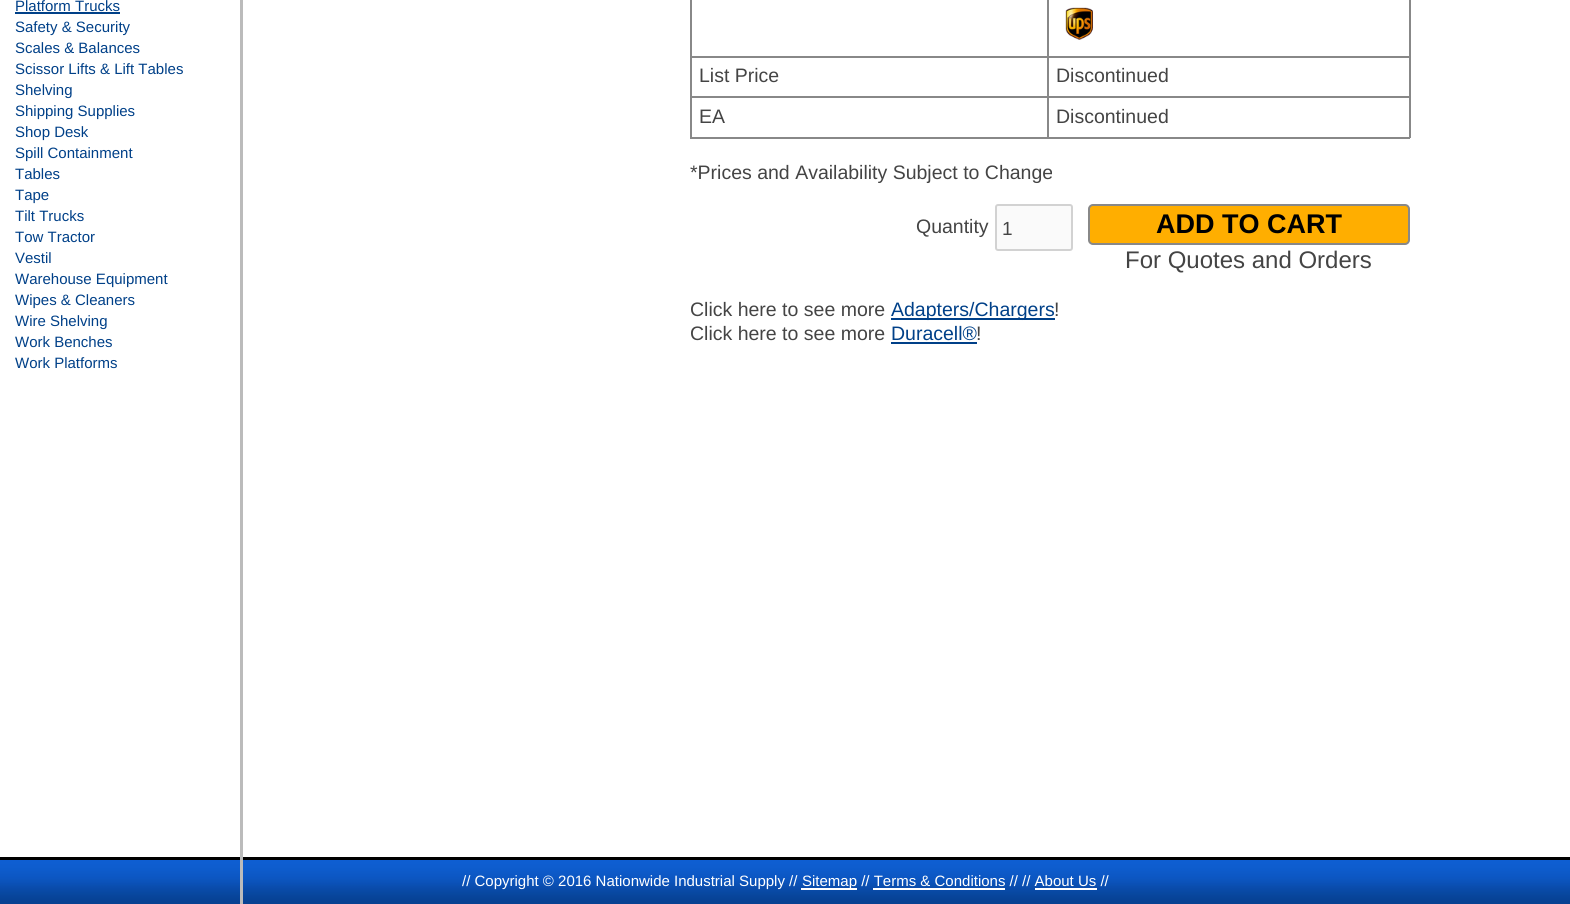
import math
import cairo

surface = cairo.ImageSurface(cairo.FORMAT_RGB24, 1570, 904)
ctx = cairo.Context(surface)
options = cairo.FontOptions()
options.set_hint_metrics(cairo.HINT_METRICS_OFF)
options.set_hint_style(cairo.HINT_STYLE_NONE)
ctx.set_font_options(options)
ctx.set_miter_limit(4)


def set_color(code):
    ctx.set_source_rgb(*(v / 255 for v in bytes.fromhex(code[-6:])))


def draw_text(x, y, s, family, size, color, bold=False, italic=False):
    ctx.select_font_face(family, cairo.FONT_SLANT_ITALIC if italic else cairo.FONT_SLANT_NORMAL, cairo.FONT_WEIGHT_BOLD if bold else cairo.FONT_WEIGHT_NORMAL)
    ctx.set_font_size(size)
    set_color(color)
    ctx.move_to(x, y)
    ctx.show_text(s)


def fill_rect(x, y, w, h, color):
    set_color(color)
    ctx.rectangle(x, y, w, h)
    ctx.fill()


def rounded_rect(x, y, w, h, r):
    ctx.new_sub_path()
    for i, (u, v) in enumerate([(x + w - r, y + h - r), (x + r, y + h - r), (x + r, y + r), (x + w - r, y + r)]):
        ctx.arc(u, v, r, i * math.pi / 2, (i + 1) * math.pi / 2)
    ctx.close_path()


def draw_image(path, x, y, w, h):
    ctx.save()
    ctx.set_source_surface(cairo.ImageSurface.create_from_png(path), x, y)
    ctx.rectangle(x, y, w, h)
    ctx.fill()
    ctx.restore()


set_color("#ffffff")
ctx.paint()
draw_image("assets/img2.png", 0, 860, 1570, 44)
fill_rect(0, 857, 1570, 3, "#000000")
fill_rect(240, 0, 3, 904, "#bbbbbb")
draw_text(15, 11, "Platform Trucks", "Liberation Sans", 15, "#004088")
fill_rect(15, 12, 105, 2, "#004088")
draw_text(15, 32, "Safety & Security", "Liberation Sans", 15, "#004088")
draw_text(15, 53, "Scales & Balances", "Liberation Sans", 15, "#004088")
draw_text(15, 74, "Scissor Lifts & Lift Tables", "Liberation Sans", 15, "#004088")
draw_text(15, 95, "Shelving", "Liberation Sans", 15, "#004088")
draw_text(15, 116, "Shipping Supplies", "Liberation Sans", 15, "#004088")
draw_text(15, 137, "Shop Desk", "Liberation Sans", 15, "#004088")
draw_text(15, 158, "Spill Containment", "Liberation Sans", 15, "#004088")
draw_text(15, 179, "Tables", "Liberation Sans", 15, "#004088")
draw_text(15, 200, "Tape", "Liberation Sans", 15, "#004088")
draw_text(15, 221, "Tilt Trucks", "Liberation Sans", 15, "#004088")
draw_text(15, 242, "Tow Tractor", "Liberation Sans", 15, "#004088")
draw_text(15, 263, "Vestil", "Liberation Sans", 15, "#004088")
draw_text(15, 284, "Warehouse Equipment", "Liberation Sans", 15, "#004088")
draw_text(15, 305, "Wipes & Cleaners", "Liberation Sans", 15, "#004088")
draw_text(15, 326, "Wire Shelving", "Liberation Sans", 15, "#004088")
draw_text(15, 347, "Work Benches", "Liberation Sans", 15, "#004088")
draw_text(15, 368, "Work Platforms", "Liberation Sans", 15, "#004088")
fill_rect(1047, 56, 363, 2, "#888888")
fill_rect(1047, 96, 363, 2, "#888888")
fill_rect(1409, 96, 2, 42, "#888888")
fill_rect(1047, 137, 363, 2, "#888888")
fill_rect(1047, 96, 2, 42, "#888888")
fill_rect(690, 96, 359, 2, "#888888")
fill_rect(1047, 56, 2, 42, "#888888")
fill_rect(690, 56, 359, 2, "#888888")
fill_rect(1047, 0, 2, 57, "#888888")
draw_image("assets/img1.png", 1065, 7, 28, 33)
fill_rect(690, 137, 359, 2, "#888888")
fill_rect(690, 96, 2, 42, "#888888")
fill_rect(690, 0, 2, 98, "#888888")
draw_text(699, 82, "List Price", "Liberation Sans", 19.5, "#444444")
fill_rect(1409, 0, 2, 98, "#888888")
draw_text(1056, 82, "Discontinued", "Liberation Sans", 19.5, "#444444")
draw_text(699, 123, "EA", "Liberation Sans", 19.5, "#444444")
draw_text(1056, 123, "Discontinued", "Liberation Sans", 19.5, "#444444")
draw_text(690, 179, "*Prices and Availability Subject to Change", "Liberation Sans", 19.5, "#444444")
draw_text(916, 233, "Quantity", "Liberation Sans", 19.5, "#444444")
set_color("#fafafa")
rounded_rect(996, 205, 76, 45, 2)
ctx.fill_preserve()
set_color("#d2d2d2")
ctx.stroke()
draw_text(1002, 235, "1", "Liberation Sans", 19, "#444444")
set_color("#ffae00")
rounded_rect(1089, 205, 320, 39, 4)
ctx.fill_preserve()
set_color("#888888")
ctx.stroke()
draw_text(1156, 233, "ADD TO CART", "Liberation Sans", 27, "#000000", bold=True)
draw_text(1125, 268, "For Quotes and Orders", "Liberation Sans", 24, "#444444")
draw_text(690, 316, "Click here to see more", "Liberation Sans", 19.5, "#444444")
fill_rect(891, 318, 164, 2, "#004088")
draw_text(891, 316, "Adapters/Chargers", "Liberation Sans", 19.5, "#004088")
draw_text(1054, 316, "!", "Liberation Sans", 19.5, "#444444")
draw_text(690, 340, "Click here to see more", "Liberation Sans", 19.5, "#444444")
draw_text(891, 340, "Duracell®", "Liberation Sans", 19.5, "#004088")
fill_rect(891, 342, 86, 2, "#004088")
draw_text(976, 340, "!", "Liberation Sans", 19.5, "#444444")
draw_text(462, 886, "// Copyright © 2016 Nationwide Industrial Supply //", "Liberation Sans", 15, "#ffffff")
fill_rect(801, 888, 56, 2, "#ffffff")
draw_text(802, 886, "Sitemap // Terms & Conditions // // About Us //", "Liberation Sans", 15, "#ffffff")
fill_rect(873, 888, 132, 2, "#ffffff")
fill_rect(1035, 888, 62, 2, "#ffffff")
surface.write_to_png("output.png")
